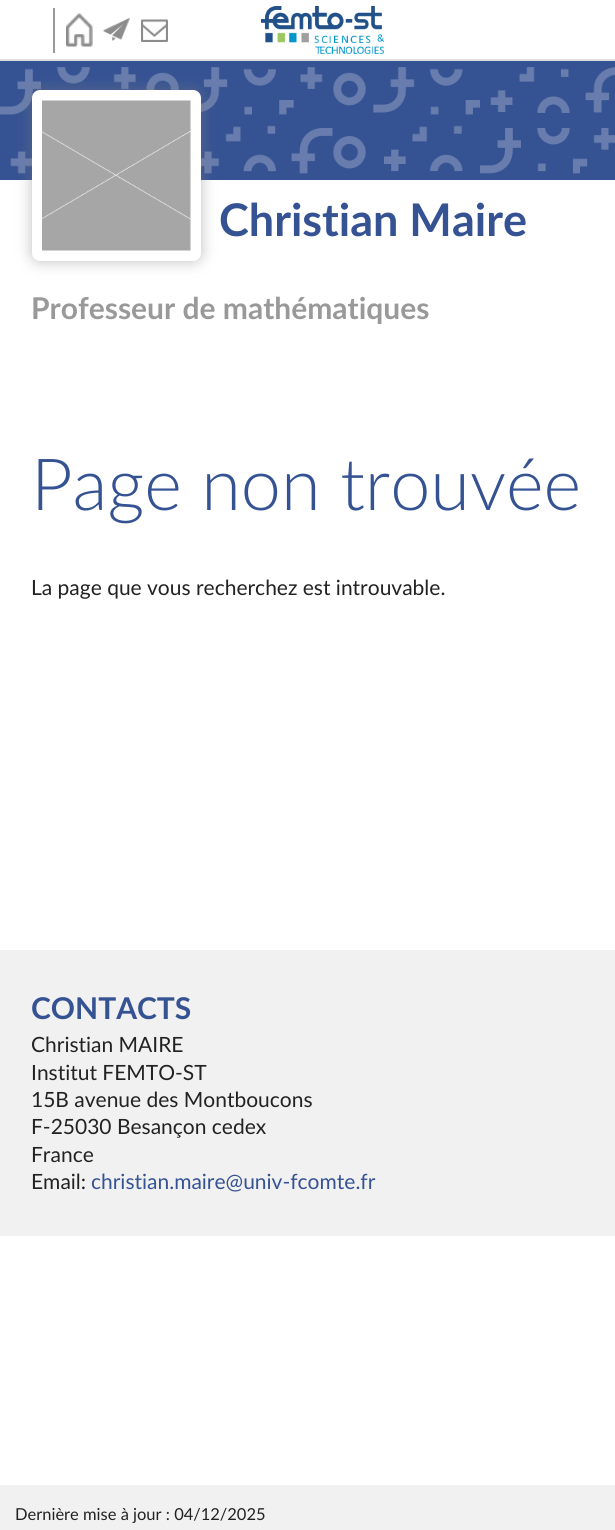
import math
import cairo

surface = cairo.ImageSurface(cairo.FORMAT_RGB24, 615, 1530)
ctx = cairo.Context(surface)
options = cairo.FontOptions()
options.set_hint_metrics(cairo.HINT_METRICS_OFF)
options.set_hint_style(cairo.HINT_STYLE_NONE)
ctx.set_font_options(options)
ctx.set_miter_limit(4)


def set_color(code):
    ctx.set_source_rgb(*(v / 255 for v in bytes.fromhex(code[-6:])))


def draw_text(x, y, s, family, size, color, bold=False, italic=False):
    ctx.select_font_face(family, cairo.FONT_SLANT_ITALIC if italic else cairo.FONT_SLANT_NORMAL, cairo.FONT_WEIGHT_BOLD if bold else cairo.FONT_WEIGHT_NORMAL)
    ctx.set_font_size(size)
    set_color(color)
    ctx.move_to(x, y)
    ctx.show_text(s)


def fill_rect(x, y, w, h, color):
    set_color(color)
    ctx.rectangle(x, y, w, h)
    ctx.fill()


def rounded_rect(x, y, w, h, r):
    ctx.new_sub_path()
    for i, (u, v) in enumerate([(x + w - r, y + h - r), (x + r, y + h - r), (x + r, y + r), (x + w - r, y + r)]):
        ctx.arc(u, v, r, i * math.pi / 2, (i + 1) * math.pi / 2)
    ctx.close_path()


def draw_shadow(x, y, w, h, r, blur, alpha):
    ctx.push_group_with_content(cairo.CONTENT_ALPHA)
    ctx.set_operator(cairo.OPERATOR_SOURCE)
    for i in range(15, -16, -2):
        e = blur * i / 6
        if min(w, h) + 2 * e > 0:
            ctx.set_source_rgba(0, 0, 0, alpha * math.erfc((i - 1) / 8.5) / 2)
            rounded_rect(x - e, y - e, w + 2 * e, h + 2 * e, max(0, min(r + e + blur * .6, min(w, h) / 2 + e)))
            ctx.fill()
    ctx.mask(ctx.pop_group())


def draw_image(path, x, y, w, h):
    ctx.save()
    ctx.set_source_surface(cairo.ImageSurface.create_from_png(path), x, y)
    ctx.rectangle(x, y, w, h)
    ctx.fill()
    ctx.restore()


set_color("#ffffff")
ctx.paint()
fill_rect(0, 61, 615, 119, "#355293")
draw_image("assets/img1.png", 0, 67, 615, 107)
draw_image("assets/img2.png", 66, 13, 27, 34)
draw_image("assets/img3.png", 103, 18, 27, 23)
draw_image("assets/img4.png", 141, 19, 27, 23)
draw_image("assets/img5.png", 261, 6, 123, 48)
fill_rect(0, 59, 615, 2, "#dddddd")
fill_rect(53, 8, 2, 45, "#9a9a9a")
set_color("#7d7d7d")
draw_shadow(32, 90, 169, 171, 8, 7.5, 0.5)
set_color("#ffffff")
rounded_rect(32, 90, 169, 171, 8)
ctx.fill()
draw_image("assets/img6.png", 42, 100, 149, 151)
draw_text(219, 236, "Christian Maire", "Lato", 45, "#355293", bold=True)
draw_text(31, 319, "Professeur de mathématiques", "Lato", 30, "#999999", bold=True)
draw_text(31, 510, "Page non trouvée", "Lato Light", 72, "#355293")
draw_text(31, 595, "La page que vous recherchez est introuvable.", "Lato", 21, "#222222")
fill_rect(0, 950, 615, 286, "#f1f1f1")
draw_text(31, 1019, "CONTACTS", "Lato", 30, "#355293", bold=True)
draw_text(31, 1052, "Christian MAIRE", "Lato", 21, "#222222")
draw_text(31, 1080, "Institut FEMTO-ST", "Lato", 21, "#222222")
draw_text(31, 1107, "15B avenue des Montboucons", "Lato", 21, "#222222")
draw_text(31, 1134, "F-25030 Besançon cedex", "Lato", 21, "#222222")
draw_text(31, 1162, "France", "Lato", 21, "#222222")
draw_text(31, 1189, "Email:", "Lato", 21, "#222222")
draw_text(91, 1189, "christian.maire@univ-fcomte.fr", "Lato", 21, "#355293")
fill_rect(0, 1485, 615, 45, "#f1f1f1")
draw_text(15, 1520, "Dernière mise à jour : 04/12/2025", "Lato", 16.5, "#222222")
surface.write_to_png("output.png")
